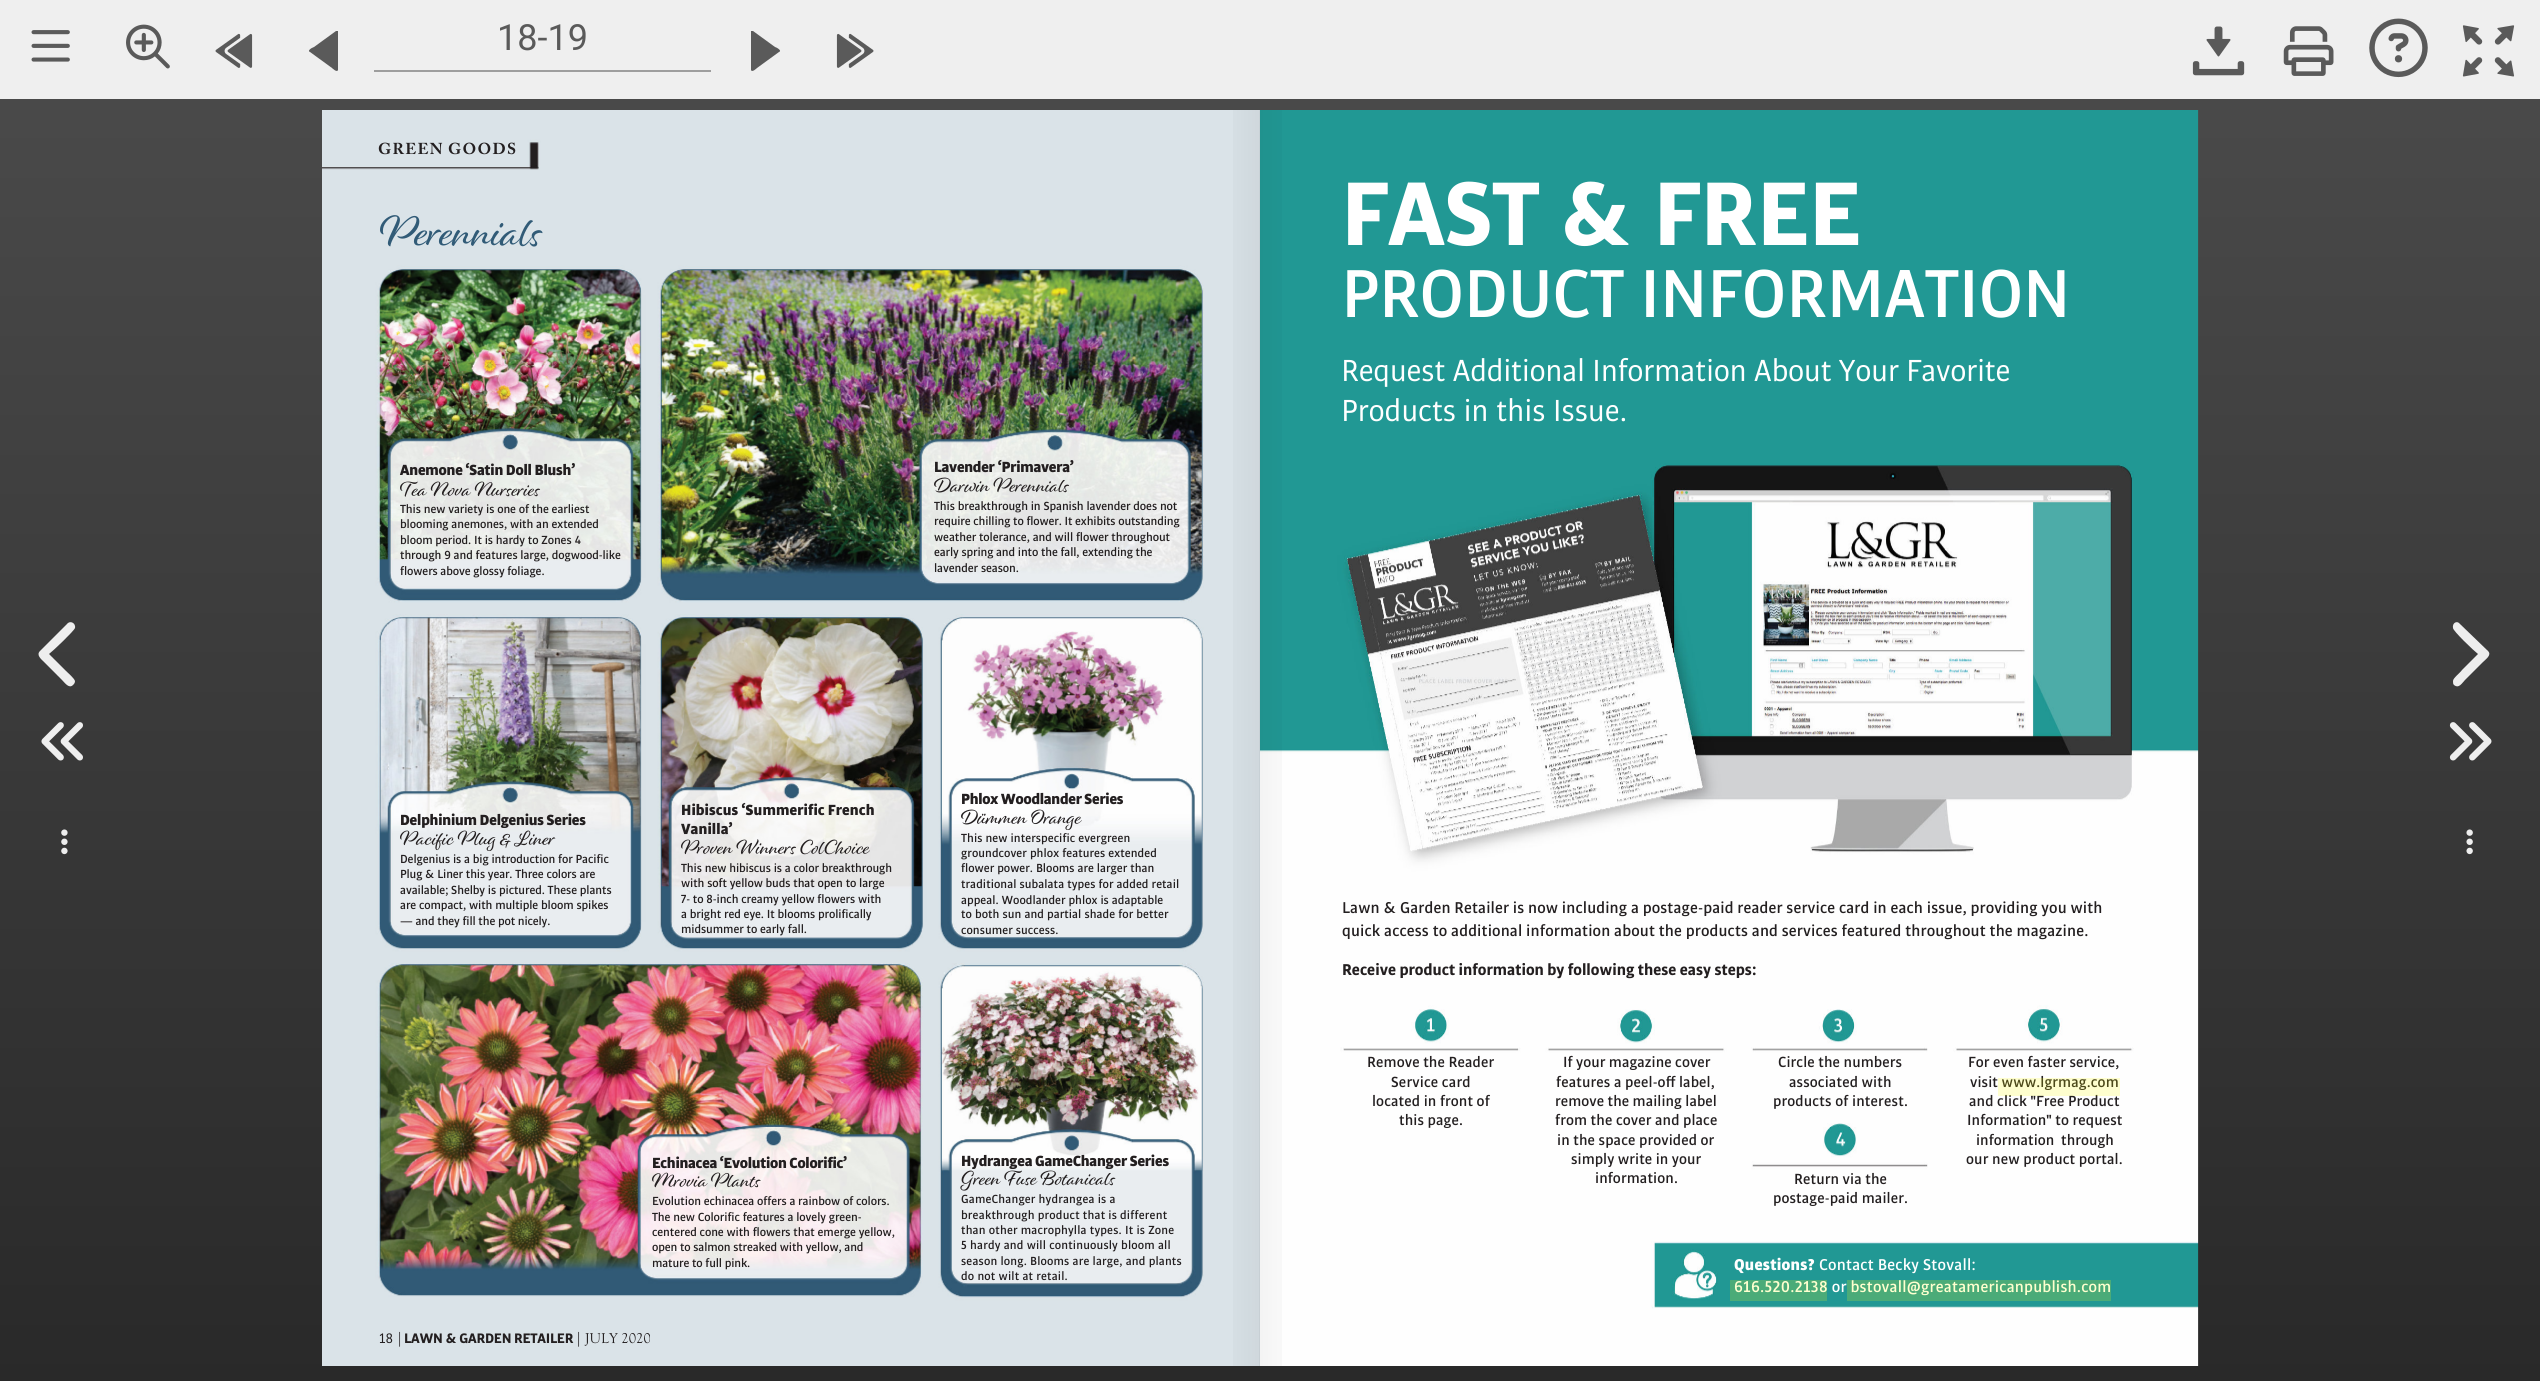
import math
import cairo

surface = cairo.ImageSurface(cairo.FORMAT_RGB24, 2540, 1381)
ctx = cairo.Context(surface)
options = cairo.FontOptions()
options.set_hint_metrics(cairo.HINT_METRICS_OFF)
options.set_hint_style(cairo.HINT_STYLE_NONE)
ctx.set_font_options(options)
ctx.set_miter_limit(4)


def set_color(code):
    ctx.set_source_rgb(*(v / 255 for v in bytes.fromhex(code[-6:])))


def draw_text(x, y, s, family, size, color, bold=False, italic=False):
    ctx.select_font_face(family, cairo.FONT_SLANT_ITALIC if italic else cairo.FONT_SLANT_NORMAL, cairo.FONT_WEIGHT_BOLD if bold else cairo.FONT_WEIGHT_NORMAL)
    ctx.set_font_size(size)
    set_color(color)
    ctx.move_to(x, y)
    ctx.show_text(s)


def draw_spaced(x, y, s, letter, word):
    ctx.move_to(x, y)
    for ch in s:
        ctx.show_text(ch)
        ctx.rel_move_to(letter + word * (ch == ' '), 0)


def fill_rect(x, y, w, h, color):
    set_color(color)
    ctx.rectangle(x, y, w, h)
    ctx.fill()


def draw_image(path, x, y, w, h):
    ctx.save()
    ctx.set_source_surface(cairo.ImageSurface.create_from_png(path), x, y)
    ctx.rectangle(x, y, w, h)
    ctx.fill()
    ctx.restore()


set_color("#ffffff")
ctx.paint()
gradient = cairo.LinearGradient(1270, 0, 1270, 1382)
gradient.add_color_stop_rgba(0, 0.298, 0.298, 0.298, 1)
gradient.add_color_stop_rgba(1, 0.161, 0.161, 0.161, 1)
ctx.set_source(gradient)
ctx.rectangle(0, 99, 2540, 1282)
ctx.fill()
fill_rect(0, 0, 2540, 99, "#efefef")
draw_image("assets/img1.png", 31, 30, 39, 32)
draw_image("assets/img2.png", 126, 24, 44, 45)
draw_image("assets/img3.png", 215, 33, 38, 35)
set_color("#5a5a5a")
ctx.new_path()
ctx.move_to(310, 52)
ctx.line_to(332, 68)
ctx.curve_to(332, 68, 337, 73, 338, 70)
ctx.line_to(338, 32)
ctx.line_to(338, 31)
ctx.line_to(336, 31)
ctx.line_to(314, 47)
ctx.curve_to(311, 48, 307, 51, 310, 52)
ctx.close_path()
ctx.fill()
fill_rect(374, 70, 337, 2, "#9e9e9e")
draw_text(497, 50, "18-19", "Roboto", 36, "#5a5a5a")
ctx.new_path()
ctx.move_to(779, 52)
ctx.line_to(757, 68)
ctx.curve_to(757, 68, 752, 73, 751, 70)
ctx.line_to(751, 32)
ctx.line_to(751, 31)
ctx.line_to(753, 31)
ctx.line_to(775, 47)
ctx.curve_to(778, 48, 782, 51, 779, 52)
ctx.close_path()
ctx.fill()
draw_image("assets/img4.png", 836, 33, 38, 35)
draw_image("assets/img5.png", 2192, 26, 53, 50)
draw_image("assets/img6.png", 2283, 26, 51, 50)
draw_image("assets/img7.png", 2369, 18, 59, 60)
draw_image("assets/img8.png", 2462, 25, 53, 52)
set_color("#eeeeee")
ctx.new_path()
ctx.move_to(40, 651)
ctx.curve_to(36, 655, 41, 659, 44, 662)
ctx.line_to(62, 680)
ctx.curve_to(65, 683, 69, 689, 73, 685)
ctx.curve_to(74, 684, 75, 683, 75, 681)
ctx.curve_to(74, 678, 68, 673, 65, 670)
ctx.line_to(49, 654)
ctx.curve_to(53, 651, 74, 631, 75, 628)
ctx.curve_to(76, 623, 70, 620, 67, 624)
ctx.close_path()
ctx.fill()
draw_image("assets/img9.png", 41, 722, 42, 39)
draw_image("assets/img10.png", 61, 829, 7, 26)
draw_image("assets/img12.png", 1259, 110, 1, 1256)
draw_image("assets/img11.png", 322, 110, 938, 1256)
ctx.select_font_face("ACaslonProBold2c", cairo.FONT_SLANT_NORMAL, cairo.FONT_WEIGHT_BOLD)
ctx.set_font_size(15.75)
set_color("#231f20")
draw_spaced(378, 154, "GREEN GOODS", 1.25, 0)
ctx.select_font_face("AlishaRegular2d")
ctx.set_font_size(45)
set_color("#315b77")
draw_spaced(380, 246, "Perennials", -0.2, 0)
ctx.select_font_face("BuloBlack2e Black")
ctx.set_font_size(15.75)
set_color("#231f20")
draw_spaced(400, 475, "Anemone ‘Satin Doll Blush’", -0.2, 0)
draw_spaced(934, 472, "Lavender ‘Primavera’", -0.25, 0.5)
draw_text(400, 496, "Tea Nova Nurseries", "AlishaRegular2d", 21, "#231f20")
draw_spaced(934, 492, "Darwin Perennials", -0.1, 0)
ctx.select_font_face("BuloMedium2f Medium")
ctx.set_font_size(12.6)
draw_spaced(400, 513, "This new variety is one of the earliest", -0.1, 0.25)
draw_spaced(934, 510, "This breakthrough in Spanish lavender does not", -0.1, 0.25)
draw_spaced(400, 528, "blooming anemones, with an extended", -0.1, 0.25)
draw_spaced(934, 525, "require chilling to flower. It exhibits outstanding", -0.15, 0.25)
draw_spaced(400, 544, "bloom period. It is hardy to Zones 4", -0.1, 0.25)
draw_spaced(934, 541, "weather tolerance, and will flower throughout", -0.1, 0.25)
draw_spaced(400, 559, "through 9 and features large, dogwood-like", -0.1, 0.25)
draw_spaced(934, 556, "early spring and into the fall, extending the", -0.15, 0.25)
draw_spaced(400, 575, "flowers above glossy foliage.", -0.1, 0)
draw_spaced(934, 572, "lavender season.", -0.1, 0.25)
ctx.select_font_face("BuloBlack2e Black")
ctx.set_font_size(15.75)
draw_spaced(961, 804, "Phlox Woodlander Series", -0.25, 0)
draw_spaced(400, 825, "Delphinium Delgenius Series", -0.2, 0)
draw_spaced(681, 815, "Hibiscus ‘Summerific French", 0.11, 0)
ctx.select_font_face("AlishaRegular2d")
ctx.set_font_size(21)
draw_spaced(961, 824, "Dümmen Orange", -0.1, 0)
ctx.select_font_face("BuloBlack2e Black")
ctx.set_font_size(15.75)
draw_spaced(681, 834, "Vanilla’", 0.1, 0)
draw_text(400, 845, "Pacific Plug & Liner", "AlishaRegular2d", 21, "#231f20")
draw_text(681, 854, "Proven Winners ColChoice", "AlishaRegular2d", 21, "#231f20")
ctx.select_font_face("BuloMedium2f Medium")
ctx.set_font_size(12.6)
draw_spaced(961, 842, "This new interspecific evergreen", 0.05, 0.25)
draw_spaced(400, 863, "Delgenius is a big introduction for Pacific", -0.1, 0.25)
draw_spaced(961, 857, "groundcover phlox features extended", 0.05, 0.25)
draw_spaced(400, 878, "Plug & Liner this year. Three colors are", -0.15, 0.25)
draw_spaced(681, 872, "This new hibiscus is a color breakthrough", -0.1, 0.25)
draw_spaced(961, 872, "flower power. Blooms are larger than", 0, 0.25)
draw_spaced(400, 894, "available; Shelby is pictured. These plants", -0.1, 0.25)
draw_spaced(681, 887, "with soft yellow buds that open to large", -0.1, 0.25)
draw_spaced(961, 888, "traditional subalata types for added retail", 0.05, 0.25)
draw_spaced(400, 909, "are compact, with multiple bloom spikes", -0.1, 0.25)
draw_spaced(681, 903, "7- to 8-inch creamy yellow flowers with", -0.1, 0.25)
draw_spaced(961, 904, "appeal. Woodlander phlox is adaptable", 0, 0.25)
draw_spaced(400, 925, "— and they fill the pot nicely.", -0.15, 0.25)
draw_spaced(681, 918, "a bright red eye. It blooms prolifically", -0.1, 0.25)
draw_spaced(961, 918, "to both sun and partial shade for better", 0.05, 0.25)
draw_spaced(681, 933, "midsummer to early fall.", -0.1, 0.25)
draw_spaced(961, 934, "consumer success.", 0.05, 0.25)
ctx.select_font_face("BuloBlack2e Black")
ctx.set_font_size(15.75)
draw_spaced(652, 1168, "Echinacea ‘Evolution Colorific’", -0.25, 0)
draw_spaced(961, 1166, "Hydrangea GameChanger Series", -0.2, 0)
ctx.select_font_face("AlishaRegular2d")
ctx.set_font_size(21)
draw_spaced(652, 1187, "Mrovia Plants", -0.1, 0)
draw_spaced(961, 1185, "Green Fuse Botanicals", -0.1, 0)
ctx.select_font_face("BuloMedium2f Medium")
ctx.set_font_size(12.6)
draw_spaced(652, 1205, "Evolution echinacea offers a rainbow of colors.", -0.1, 0.25)
draw_spaced(961, 1203, "GameChanger hydrangea is a", 0.15, 0.25)
draw_spaced(652, 1221, "The new Colorific features a lovely green-", -0.1, 0.25)
draw_spaced(961, 1219, "breakthrough product that is different", 0.2, 0)
draw_spaced(652, 1236, "centered cone with flowers that emerge yellow,", -0.1, 0.25)
draw_spaced(961, 1234, "than other macrophylla types. It is Zone", 0.15, 0.25)
draw_spaced(652, 1251, "open to salmon streaked with yellow, and", -0.15, 0.25)
draw_spaced(961, 1249, "5 hardy and will continuously bloom all", 0.15, 0.25)
draw_spaced(652, 1267, "mature to full pink.", -0.15, 0.25)
draw_spaced(961, 1265, "season long. Blooms are large, and plants", 0.15, 0.25)
draw_spaced(961, 1280, "do not wilt at retail.", 0.15, 0.25)
ctx.select_font_face("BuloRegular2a")
ctx.set_font_size(14.75)
draw_spaced(379, 1343, "18", -0.1, 0)
draw_text(397, 1343, "|", "BuloRegular2a", 14.75, "#4d4d4f")
ctx.select_font_face("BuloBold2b", cairo.FONT_SLANT_NORMAL, cairo.FONT_WEIGHT_BOLD)
set_color("#231f20")
draw_spaced(404, 1343, "LAWN & GARDEN RETAILER", -0.2, 0)
draw_text(576, 1343, "|", "BuloRegular2a", 14.75, "#4d4d4f")
draw_text(585, 1343, "JULY 2020", "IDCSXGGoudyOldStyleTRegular", 14.75, "#231f20")
gradient = cairo.LinearGradient(322, 740, 1260, 740)
gradient.add_color_stop_rgba(0.95, 0, 0, 0, 0)
gradient.add_color_stop_rgba(1, 0, 0, 0, 0.05)
ctx.set_source(gradient)
ctx.rectangle(1233, 110, 27, 1256)
ctx.fill()
draw_image("assets/img13.png", 1260, 110, 939, 1256)
gradient = cairo.LinearGradient(2198, 740, 1260, 740)
gradient.add_color_stop_rgba(0.95, 0, 0, 0, 0)
gradient.add_color_stop_rgba(1, 0, 0, 0, 0.04)
ctx.set_source(gradient)
ctx.rectangle(1260, 110, 22, 1256)
ctx.fill()
ctx.select_font_face("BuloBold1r", cairo.FONT_SLANT_NORMAL, cairo.FONT_WEIGHT_BOLD)
ctx.set_font_size(96.5)
set_color("#ffffff")
draw_spaced(1341, 245, "FAST & FREE", -0.25, 1)
ctx.select_font_face("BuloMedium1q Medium")
ctx.set_font_size(72.5)
draw_spaced(1341, 317, "PRODUCT INFORMATION", -0.6, 1)
ctx.select_font_face("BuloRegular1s")
ctx.set_font_size(32.6)
draw_spaced(1341, 381, "Request Additional Information About Your Favorite", -0.4, 0.5)
draw_spaced(1341, 421, "Products in this Issue.", -0.25, 0.5)
ctx.select_font_face("BuloMedium1q Medium")
ctx.set_font_size(16.8)
set_color("#231f20")
draw_spaced(1342, 913, "Lawn & Garden Retailer is now including a postage-paid reader service card in each issue, providing you with", 0.11, 0)
draw_spaced(1342, 936, "quick access to additional information about the products and services featured throughout the magazine.", 0.12, 0)
draw_text(1342, 975, "Receive product information by following these easy steps:", "BuloBold1r", 16.8, "#231f20", bold=True)
ctx.select_font_face("BuloMedium1q Medium")
ctx.set_font_size(15.75)
draw_spaced(1367, 1067, "Remove the Reader", 0.1, 0)
draw_spaced(1563, 1067, "If your magazine cover", 0.05, 0)
draw_spaced(1778, 1067, "Circle the numbers", 0.1, 0)
draw_spaced(1968, 1067, "For even faster service,", 0.11, 0)
draw_spaced(1391, 1087, "Service card", 0.15, 0)
draw_spaced(1556, 1087, "features a peel-oﬀ label,", 0.12, 0)
draw_spaced(1789, 1087, "associated with", 0.1, 0)
draw_spaced(1970, 1087, "visit www.lgrmag.com", 0.1, 0)
draw_spaced(1372, 1106, "located in front of", 0.1, 0)
draw_spaced(1555, 1106, "remove the mailing label", 0.05, 0)
draw_spaced(1773, 1106, "products of interest.", 0.15, 0)
draw_spaced(1969, 1106, "and click \"Free Product", 0.1, 0)
draw_spaced(1399, 1125, "this page.", 0.1, 0)
draw_spaced(1555, 1125, "from the cover and place", 0.1, 0)
draw_spaced(1967, 1125, "Information\" to request", 0.1, 0)
draw_spaced(1557, 1145, "in the space provided or", 0.1, 0)
draw_spaced(1976, 1145, "information", 0.05, 0)
draw_spaced(2061, 1145, "through", 0.05, 0)
draw_spaced(1571, 1164, "simply write in your", 0.05, 0)
draw_spaced(1966, 1164, "our new product portal.", 0.15, 0)
draw_spaced(1595, 1183, "information.", 0.1, 0)
draw_spaced(1794, 1184, "Return via the", 0.1, 0)
draw_spaced(1773, 1203, "postage-paid mailer.", 0.1, 0)
ctx.select_font_face("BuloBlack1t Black")
ctx.set_font_size(16.8)
set_color("#ffffff")
draw_spaced(1734, 1270, "Questions?", 0.25, 0)
ctx.select_font_face("BuloMedium1q Medium")
draw_spaced(1819, 1270, "Contact Becky Stovall:", 0.2, 0)
draw_spaced(1734, 1292, "616.520.2138 or bstovall@greatamericanpublish.com", 0.2, 0)
ctx.set_source_rgba(1, 1, 0, 0.19)
ctx.rectangle(1998, 1078, 122, 18)
ctx.fill()
ctx.rectangle(1730, 1280, 97, 21)
ctx.fill()
ctx.rectangle(1847, 1280, 264, 21)
ctx.fill()
set_color("#eeeeee")
ctx.new_path()
ctx.move_to(2488, 651)
ctx.curve_to(2492, 655, 2486, 659, 2483, 662)
ctx.line_to(2465, 680)
ctx.curve_to(2462, 683, 2459, 689, 2454, 685)
ctx.curve_to(2453, 684, 2453, 683, 2453, 681)
ctx.curve_to(2453, 678, 2460, 673, 2462, 670)
ctx.line_to(2478, 654)
ctx.curve_to(2474, 651, 2453, 631, 2453, 628)
ctx.curve_to(2452, 623, 2457, 620, 2460, 624)
ctx.close_path()
ctx.fill()
draw_image("assets/img14.png", 2449, 722, 43, 39)
draw_image("assets/img15.png", 2466, 829, 7, 26)
surface.write_to_png("output.png")
